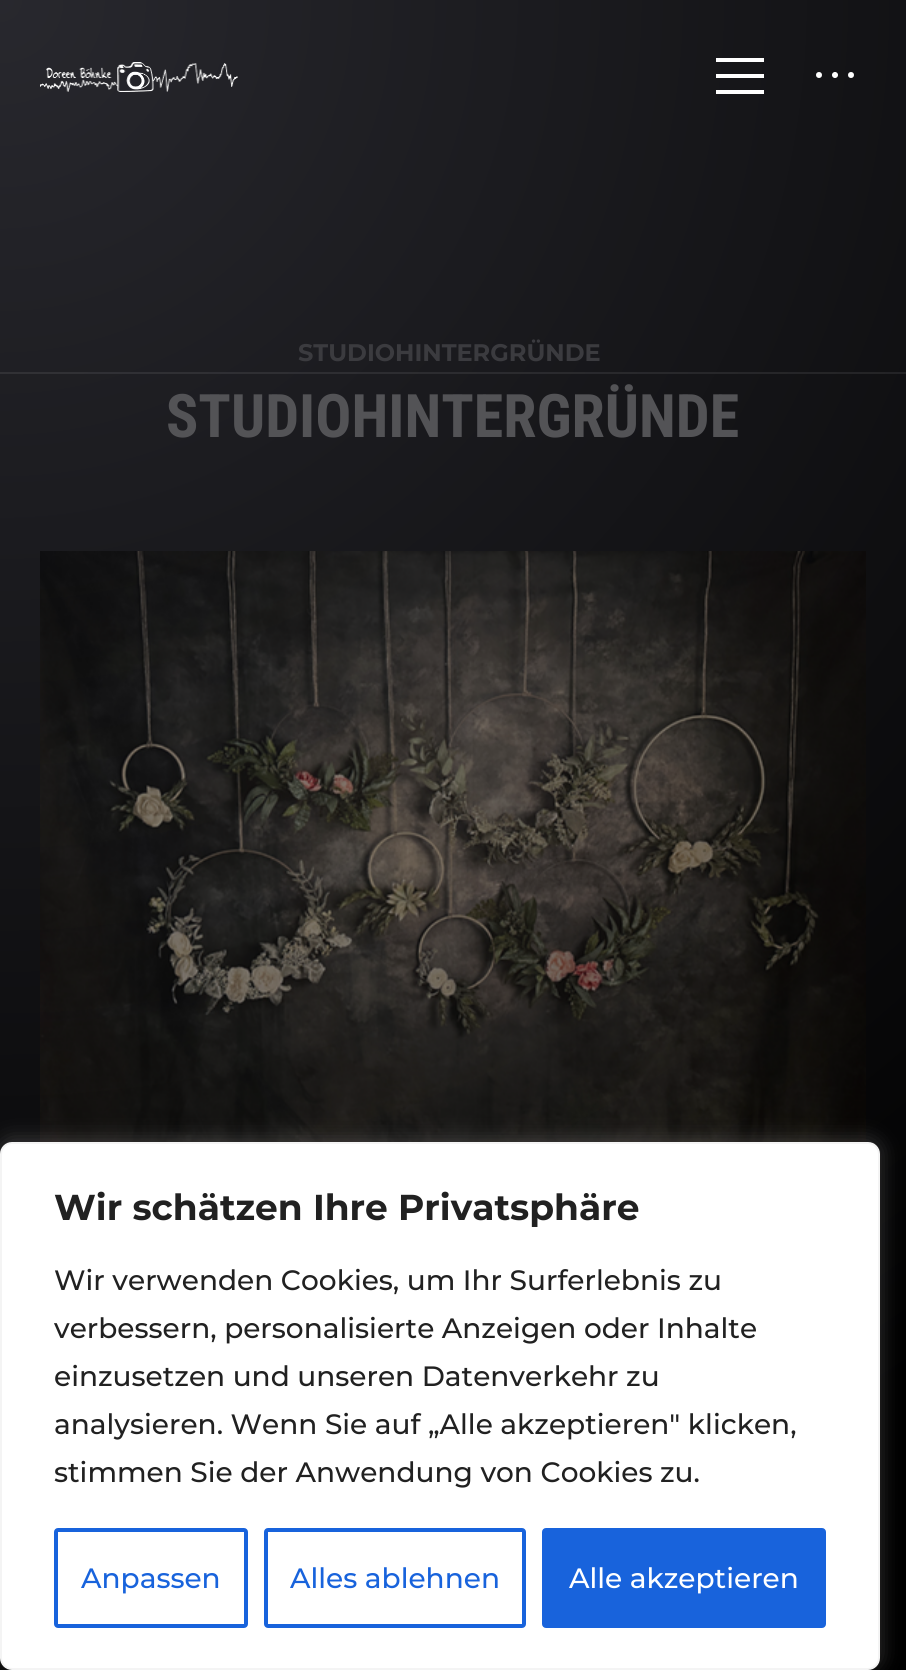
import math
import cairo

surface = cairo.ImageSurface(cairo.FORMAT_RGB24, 906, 1670)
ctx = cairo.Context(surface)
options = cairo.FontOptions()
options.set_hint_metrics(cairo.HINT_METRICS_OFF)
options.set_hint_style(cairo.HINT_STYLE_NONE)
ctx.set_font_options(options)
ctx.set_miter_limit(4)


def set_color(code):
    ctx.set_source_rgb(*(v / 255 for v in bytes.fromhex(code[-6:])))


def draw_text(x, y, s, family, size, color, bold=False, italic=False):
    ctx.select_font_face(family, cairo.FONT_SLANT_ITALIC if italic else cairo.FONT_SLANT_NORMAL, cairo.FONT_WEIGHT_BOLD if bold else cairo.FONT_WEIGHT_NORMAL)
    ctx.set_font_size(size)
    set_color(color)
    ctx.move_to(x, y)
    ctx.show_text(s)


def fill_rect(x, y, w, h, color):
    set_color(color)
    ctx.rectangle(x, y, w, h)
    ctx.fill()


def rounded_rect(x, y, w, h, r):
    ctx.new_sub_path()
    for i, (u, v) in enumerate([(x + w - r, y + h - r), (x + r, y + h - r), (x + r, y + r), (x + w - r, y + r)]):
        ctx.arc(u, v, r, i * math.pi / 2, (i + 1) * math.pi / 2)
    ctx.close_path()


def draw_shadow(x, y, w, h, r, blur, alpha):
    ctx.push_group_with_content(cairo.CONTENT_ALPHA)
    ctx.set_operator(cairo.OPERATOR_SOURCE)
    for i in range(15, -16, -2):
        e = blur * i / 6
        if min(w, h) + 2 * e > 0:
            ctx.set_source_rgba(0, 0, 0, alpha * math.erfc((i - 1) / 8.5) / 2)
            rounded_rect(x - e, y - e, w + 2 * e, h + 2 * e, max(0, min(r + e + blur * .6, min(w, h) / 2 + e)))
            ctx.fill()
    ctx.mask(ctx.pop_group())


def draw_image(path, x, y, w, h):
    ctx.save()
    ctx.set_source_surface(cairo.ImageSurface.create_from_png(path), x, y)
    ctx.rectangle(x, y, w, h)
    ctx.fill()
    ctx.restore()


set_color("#ffffff")
ctx.paint()
gradient = cairo.RadialGradient(0, 0, 0, 0, 0, 2362)
gradient.add_color_stop_rgba(0, 0.157, 0.157, 0.18, 1)
gradient.add_color_stop_rgba(0.7, 0, 0, 0, 1)
ctx.set_source(gradient)
ctx.rectangle(0, 0, 906, 1670)
ctx.fill()
gradient = cairo.RadialGradient(0, 0, 0, 0, 0, 2362)
gradient.add_color_stop_rgba(0, 0.224, 0.224, 0.247, 1)
gradient.add_color_stop_rgba(0.7, 0.078, 0.078, 0.078, 1)
ctx.set_source(gradient)
ctx.rectangle(0, 372, 906, 2)
ctx.fill()
draw_image("assets/img1.png", 40, 62, 198, 30)
fill_rect(716, 58, 48, 4, "#ffffff")
fill_rect(716, 74, 48, 4, "#ffffff")
fill_rect(716, 90, 48, 4, "#ffffff")
ctx.arc(819, 75, 3, 0, 2 * math.pi)
ctx.fill()
ctx.arc(835, 75, 3, 0, 2 * math.pi)
ctx.fill()
ctx.new_path()
ctx.move_to(832, 75)
ctx.line_to(835, 72)
ctx.line_to(838, 75)
ctx.line_to(835, 78)
ctx.close_path()
ctx.fill()
ctx.arc(851, 75, 3, 0, 2 * math.pi)
ctx.fill()
draw_text(298, 361, "STUDIOHINTERGRÜNDE", "Montserrat", 24, "#3b3b3f", bold=True)
draw_text(166, 437, "STUDIOHINTERGRÜNDE", "Roboto Condensed", 60, "#535356", bold=True)
draw_image("assets/img2.png", 40, 551, 826, 591)
set_color("#acabab")
draw_shadow(0, 1140, 880, 528, 12, 10, 0.3)
set_color("#ffffff")
rounded_rect(1, 1143, 878, 526, 11)
ctx.fill_preserve()
set_color("#f4f4f4")
ctx.stroke()
draw_text(54, 1220, "Wir schätzen Ihre Privatsphäre", "Montserrat", 36, "#212121", bold=True)
draw_text(54, 1290, "Wir verwenden Cookies, um Ihr Surferlebnis zu", "Montserrat Medium", 28, "#212121")
draw_text(54, 1338, "verbessern, personalisierte Anzeigen oder Inhalte", "Montserrat Medium", 28, "#212121")
draw_text(54, 1386, "einzusetzen und unseren Datenverkehr zu", "Montserrat Medium", 28, "#212121")
draw_text(54, 1434, "analysieren. Wenn Sie auf „Alle akzeptieren\" klicken,", "Montserrat Medium", 28, "#212121")
draw_text(54, 1482, "stimmen Sie der Anwendung von Cookies zu.", "Montserrat Medium", 28, "#212121")
rounded_rect(56, 1530, 190, 96, 2)
set_color("#1863dc")
ctx.set_line_width(4)
ctx.stroke()
draw_text(81, 1588, "Anpassen", "Montserrat Medium", 28, "#1863dc")
rounded_rect(266, 1530, 258, 96, 2)
ctx.stroke()
draw_text(290, 1588, "Alles ablehnen", "Montserrat Medium", 28, "#1863dc")
rounded_rect(544, 1530, 280, 96, 2)
ctx.fill_preserve()
ctx.stroke()
draw_text(569, 1588, "Alle akzeptieren", "Montserrat Medium", 28, "#ffffff")
surface.write_to_png("output.png")
